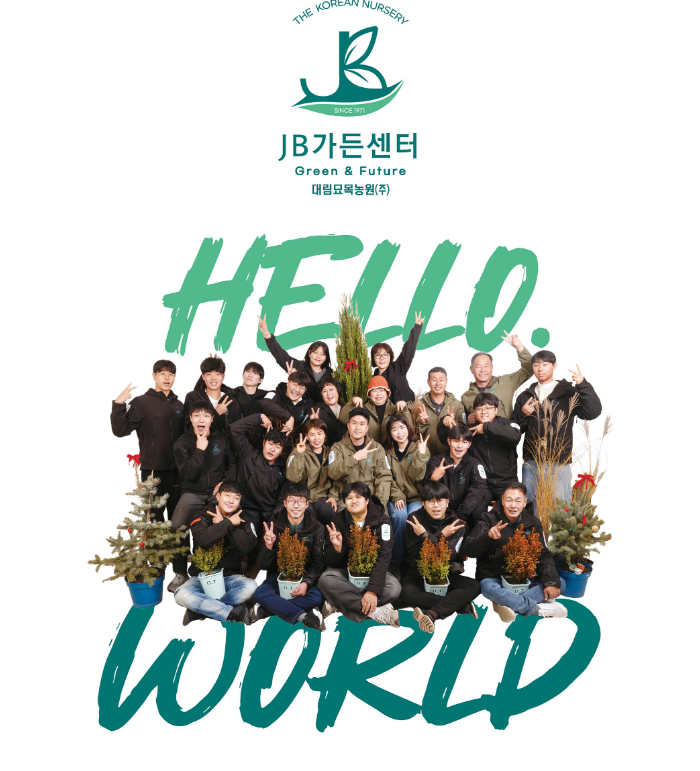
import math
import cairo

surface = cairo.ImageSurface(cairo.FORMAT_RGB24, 700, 771)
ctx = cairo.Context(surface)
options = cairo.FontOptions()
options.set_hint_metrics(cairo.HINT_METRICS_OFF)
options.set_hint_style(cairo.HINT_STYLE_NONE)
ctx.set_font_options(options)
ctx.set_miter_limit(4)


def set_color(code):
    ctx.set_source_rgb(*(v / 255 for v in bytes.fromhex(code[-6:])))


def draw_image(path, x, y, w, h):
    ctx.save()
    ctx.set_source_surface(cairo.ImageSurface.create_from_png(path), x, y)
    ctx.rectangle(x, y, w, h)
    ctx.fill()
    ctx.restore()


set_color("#ffffff")
ctx.paint()
draw_image("assets/img1.png", 86, 0, 528, 734)
surface.write_to_png("output.png")
